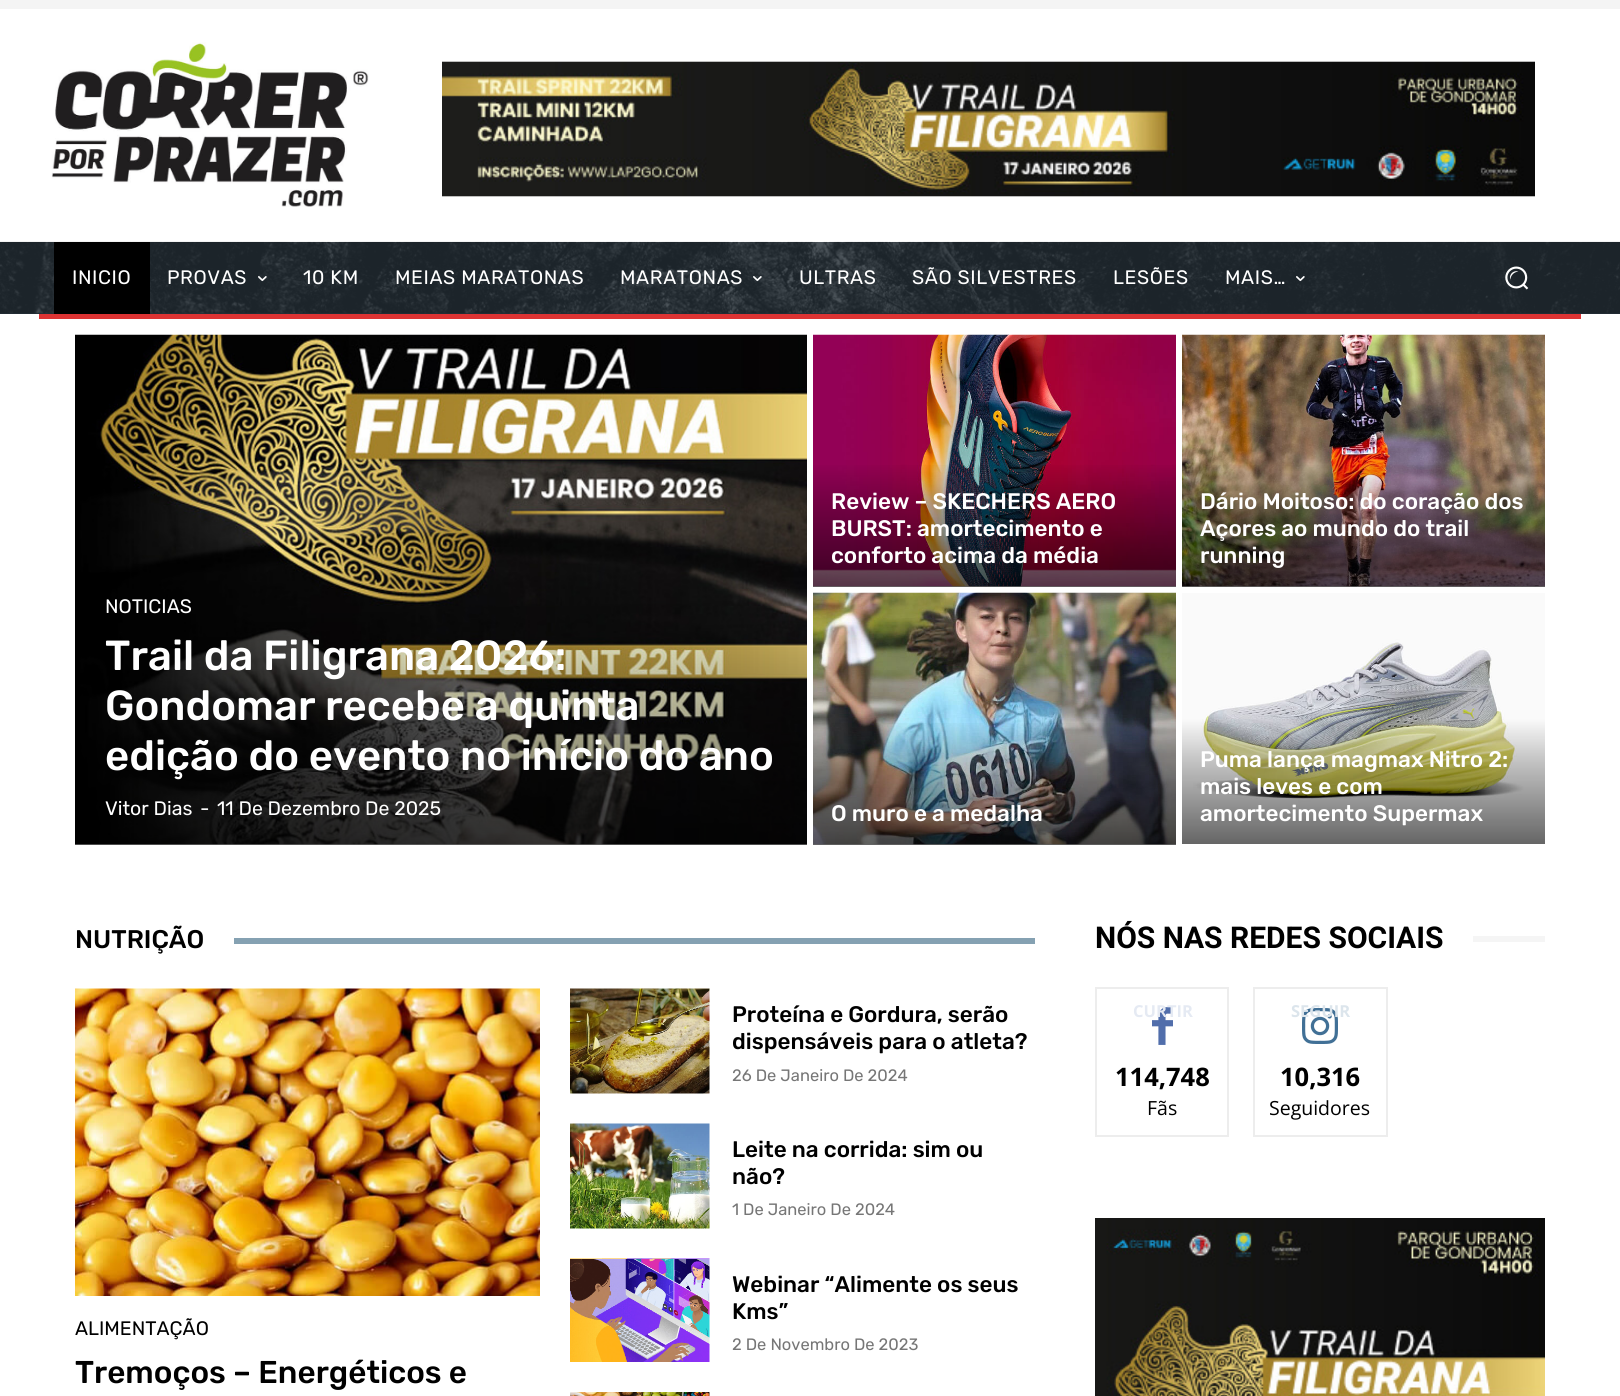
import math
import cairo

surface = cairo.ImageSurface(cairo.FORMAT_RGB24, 1620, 1396)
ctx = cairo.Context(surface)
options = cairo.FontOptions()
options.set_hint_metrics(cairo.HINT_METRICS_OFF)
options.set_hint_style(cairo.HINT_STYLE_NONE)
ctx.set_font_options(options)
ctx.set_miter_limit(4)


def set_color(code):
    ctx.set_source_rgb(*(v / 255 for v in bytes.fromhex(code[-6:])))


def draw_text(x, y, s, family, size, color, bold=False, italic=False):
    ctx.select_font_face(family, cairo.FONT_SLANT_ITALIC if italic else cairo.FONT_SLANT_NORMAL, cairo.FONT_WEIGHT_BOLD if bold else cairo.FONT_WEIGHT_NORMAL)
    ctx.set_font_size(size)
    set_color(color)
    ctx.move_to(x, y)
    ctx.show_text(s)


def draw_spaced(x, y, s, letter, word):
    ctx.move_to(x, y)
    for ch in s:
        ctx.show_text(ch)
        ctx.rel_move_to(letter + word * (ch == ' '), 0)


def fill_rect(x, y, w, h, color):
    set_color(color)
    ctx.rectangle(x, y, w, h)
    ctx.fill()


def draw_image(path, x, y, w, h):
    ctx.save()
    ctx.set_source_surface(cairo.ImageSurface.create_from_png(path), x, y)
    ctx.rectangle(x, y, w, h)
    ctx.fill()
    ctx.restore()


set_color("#ffffff")
ctx.paint()
fill_rect(0, 0, 1620, 9, "#f4f4f4")
draw_image("assets/img1.png", 51, 42, 318, 165)
draw_image("assets/img2.png", 442, 61, 1093, 136)
fill_rect(0, 242, 1620, 72, "#232d35")
draw_image("assets/img3.png", 0, 241, 1620, 73)
fill_rect(54, 242, 96, 72, "#000000")
ctx.select_font_face("Rubik")
ctx.set_font_size(19.5)
set_color("#ffffff")
draw_spaced(72, 284, "INICIO", 0.6, 0)
draw_spaced(167, 284, "PROVAS", 0.6, 0)
draw_image("assets/img4.png", 258, 276, 9, 6)
draw_spaced(303, 284, "10 KM", 0.6, 0)
draw_spaced(395, 284, "MEIAS MARATONAS", 0.6, 0)
draw_spaced(620, 284, "MARATONAS", 0.6, 0)
draw_image("assets/img5.png", 753, 276, 9, 6)
draw_spaced(799, 284, "ULTRAS", 0.6, 0)
draw_spaced(912, 284, "SÃO SILVESTRES", 0.6, 0)
draw_spaced(1113, 284, "LESÕES", 0.6, 0)
draw_spaced(1225, 284, "MAIS…", 0.6, 0)
draw_image("assets/img6.png", 1296, 276, 9, 6)
draw_image("assets/img7.png", 1505, 266, 24, 24)
fill_rect(39, 314, 1542, 5, "#dd3333")
draw_image("assets/img8.png", 75, 334, 732, 511)
gradient = cairo.LinearGradient(441, 845, 441, 335)
gradient.add_color_stop_rgba(0, 0, 0, 0, 0.6)
gradient.add_color_stop_rgba(0.35, 0, 0, 0, 0.2)
gradient.add_color_stop_rgba(0.5, 0, 0, 0, 0)
gradient.add_color_stop_rgba(1, 0, 0, 0, 0)
ctx.set_source(gradient)
ctx.rectangle(75, 598, 732, 247)
ctx.fill()
draw_text(105, 613, "NOTICIAS", "Rubik", 19.5, "#ffffff")
draw_text(105, 670, "Trail da Filigrana 2026:", "Rubik Medium", 42, "#ffffff")
draw_text(105, 720, "Gondomar recebe a quinta", "Rubik Medium", 42, "#ffffff")
draw_text(105, 770, "edição do evento no início do ano", "Rubik Medium", 42, "#ffffff")
draw_text(105, 815, "Vitor Dias", "Rubik", 19.5, "#ffffff")
draw_text(200, 815, "-", "Rubik", 19.5, "#ffffff")
draw_text(217, 815, "11 De Dezembro De 2025", "Rubik", 19.5, "#ffffff")
draw_image("assets/img9.png", 813, 334, 363, 253)
gradient = cairo.LinearGradient(995, 587, 995, 335)
gradient.add_color_stop_rgba(0, 0, 0, 0, 0.6)
gradient.add_color_stop_rgba(0.35, 0, 0, 0, 0.2)
gradient.add_color_stop_rgba(0.5, 0, 0, 0, 0)
gradient.add_color_stop_rgba(1, 0, 0, 0, 0)
ctx.set_source(gradient)
ctx.rectangle(813, 465, 363, 122)
ctx.fill()
draw_text(831, 509, "Review – SKECHERS AERO", "Rubik Medium", 22.5, "#ffffff")
draw_text(831, 536, "BURST: amortecimento e", "Rubik Medium", 22.5, "#ffffff")
draw_text(831, 563, "conforto acima da média", "Rubik Medium", 22.5, "#ffffff")
draw_image("assets/img10.png", 1182, 334, 363, 253)
gradient = cairo.LinearGradient(1364, 587, 1364, 335)
gradient.add_color_stop_rgba(0, 0, 0, 0, 0.6)
gradient.add_color_stop_rgba(0.35, 0, 0, 0, 0.2)
gradient.add_color_stop_rgba(0.5, 0, 0, 0, 0)
gradient.add_color_stop_rgba(1, 0, 0, 0, 0)
ctx.set_source(gradient)
ctx.rectangle(1182, 465, 363, 122)
ctx.fill()
draw_text(1200, 509, "Dário Moitoso: do coração dos", "Rubik Medium", 22.5, "#ffffff")
draw_text(1200, 536, "Açores ao mundo do trail", "Rubik Medium", 22.5, "#ffffff")
draw_text(1200, 563, "running", "Rubik Medium", 22.5, "#ffffff")
draw_image("assets/img11.png", 813, 592, 363, 253)
gradient = cairo.LinearGradient(995, 845, 995, 593)
gradient.add_color_stop_rgba(0, 0, 0, 0, 0.6)
gradient.add_color_stop_rgba(0.35, 0, 0, 0, 0.2)
gradient.add_color_stop_rgba(0.5, 0, 0, 0, 0)
gradient.add_color_stop_rgba(1, 0, 0, 0, 0)
ctx.set_source(gradient)
ctx.rectangle(813, 723, 363, 122)
ctx.fill()
draw_text(831, 821, "O muro e a medalha", "Rubik Medium", 22.5, "#ffffff")
draw_image("assets/img12.png", 1182, 593, 363, 251)
draw_text(1200, 767, "Puma lança magmax Nitro 2:", "Rubik Medium", 22.5, "#ffffff")
draw_text(1200, 794, "mais leves e com", "Rubik Medium", 22.5, "#ffffff")
draw_text(1200, 821, "amortecimento Supermax", "Rubik Medium", 22.5, "#ffffff")
draw_text(75, 948, "NUTRIÇÃO", "Rubik Medium", 25.5, "#000000")
fill_rect(234, 938, 801, 6, "#85a1b2")
draw_image("assets/img13.png", 75, 988, 465, 308)
draw_text(75, 1335, "ALIMENTAÇÃO", "Rubik", 19.5, "#000000")
draw_text(75, 1383, "Tremoços – Energéticos e", "Rubik Medium", 31.5, "#000000")
draw_image("assets/img14.png", 570, 988, 140, 106)
draw_text(732, 1022, "Proteína e Gordura, serão", "Rubik Medium", 22.5, "#000000")
draw_text(732, 1049, "dispensáveis para o atleta?", "Rubik Medium", 22.5, "#000000")
draw_text(732, 1081, "26 De Janeiro De 2024", "Rubik", 16.5, "#767676")
draw_image("assets/img15.png", 570, 1123, 140, 106)
draw_text(732, 1157, "Leite na corrida: sim ou", "Rubik Medium", 22.5, "#000000")
draw_text(732, 1184, "não?", "Rubik Medium", 22.5, "#000000")
draw_text(732, 1215, "1 De Janeiro De 2024", "Rubik", 16.5, "#767676")
draw_image("assets/img16.png", 570, 1258, 140, 104)
draw_text(732, 1292, "Webinar “Alimente os seus", "Rubik Medium", 22.5, "#000000")
draw_text(732, 1319, "Kms”", "Rubik Medium", 22.5, "#000000")
draw_text(732, 1350, "2 De Novembro De 2023", "Rubik", 16.5, "#767676")
draw_image("assets/img17.png", 570, 1392, 140, 4)
draw_text(1095, 948, "NÓS NAS REDES SOCIAIS", "Roboto", 30, "#000000", bold=True)
fill_rect(1473, 936, 72, 6, "#f5f5f5")
ctx.rectangle(1096, 988, 132, 148)
set_color("#ededed")
ctx.stroke()
draw_image("assets/img18.png", 1152, 1007, 21, 38)
draw_text(1133, 1017, "CURTIR", "Open Sans", 16.5, "#e5eaf3", bold=True)
draw_text(1115, 1086, "114,748", "Open Sans", 25.5, "#000000", bold=True)
draw_text(1147, 1115, "Fãs", "Open Sans", 19.5, "#000000")
ctx.rectangle(1254, 988, 133, 148)
set_color("#ededed")
ctx.stroke()
draw_image("assets/img19.png", 1302, 1008, 36, 36)
draw_text(1291, 1017, "SEGUIR", "Open Sans", 16.5, "#dce5ec", bold=True)
draw_text(1280, 1086, "10,316", "Open Sans", 25.5, "#000000", bold=True)
draw_text(1269, 1115, "Seguidores", "Open Sans", 19.5, "#000000")
draw_image("assets/img20.png", 1095, 1218, 450, 178)
surface.write_to_png("output.png")
